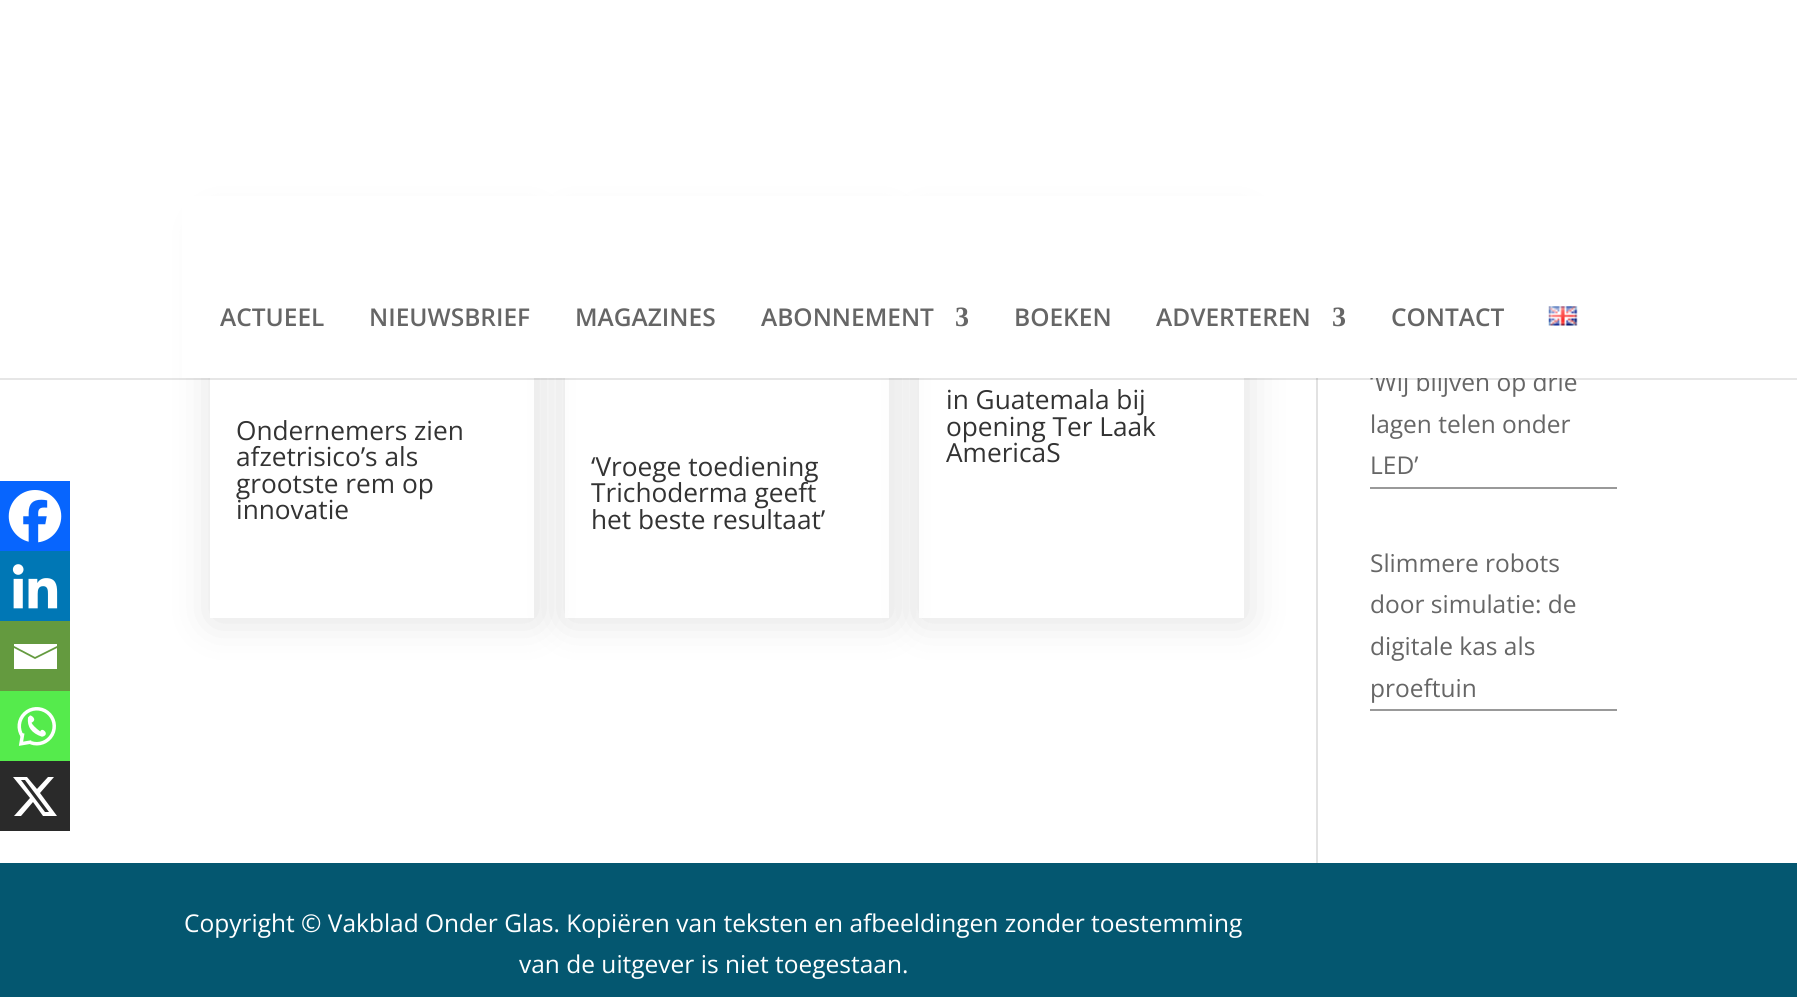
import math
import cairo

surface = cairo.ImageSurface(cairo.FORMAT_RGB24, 1797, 997)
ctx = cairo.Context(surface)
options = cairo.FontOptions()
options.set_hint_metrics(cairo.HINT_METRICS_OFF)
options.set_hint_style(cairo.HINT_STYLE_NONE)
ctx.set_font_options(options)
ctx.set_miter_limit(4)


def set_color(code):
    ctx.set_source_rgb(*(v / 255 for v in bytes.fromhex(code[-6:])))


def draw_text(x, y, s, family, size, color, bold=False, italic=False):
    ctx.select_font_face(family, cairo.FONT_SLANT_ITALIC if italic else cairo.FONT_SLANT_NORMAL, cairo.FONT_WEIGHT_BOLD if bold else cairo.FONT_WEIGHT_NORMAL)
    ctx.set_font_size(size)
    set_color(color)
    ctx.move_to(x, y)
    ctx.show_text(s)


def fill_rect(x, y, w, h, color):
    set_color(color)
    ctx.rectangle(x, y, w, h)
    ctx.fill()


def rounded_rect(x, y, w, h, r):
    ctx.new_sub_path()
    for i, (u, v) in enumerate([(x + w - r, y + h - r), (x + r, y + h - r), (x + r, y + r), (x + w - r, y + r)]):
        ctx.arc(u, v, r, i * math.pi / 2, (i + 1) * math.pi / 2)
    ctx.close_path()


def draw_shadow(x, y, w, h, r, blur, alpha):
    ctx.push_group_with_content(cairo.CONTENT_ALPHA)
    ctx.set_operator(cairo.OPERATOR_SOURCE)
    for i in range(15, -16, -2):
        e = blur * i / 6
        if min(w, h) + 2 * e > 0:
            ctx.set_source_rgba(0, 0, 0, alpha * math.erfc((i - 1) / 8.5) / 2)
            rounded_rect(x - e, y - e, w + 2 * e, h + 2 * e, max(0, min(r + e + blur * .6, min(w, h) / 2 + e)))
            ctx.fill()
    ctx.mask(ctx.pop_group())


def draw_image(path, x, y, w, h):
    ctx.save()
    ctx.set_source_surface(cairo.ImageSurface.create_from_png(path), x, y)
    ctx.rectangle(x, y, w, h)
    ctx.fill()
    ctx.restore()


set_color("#ffffff")
ctx.paint()
ctx.save()
ctx.set_fill_rule(cairo.FILL_RULE_EVEN_ODD)
ctx.new_path()
ctx.move_to(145, 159)
ctx.line_to(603, 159)
ctx.line_to(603, 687)
ctx.line_to(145, 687)
ctx.close_path()
ctx.move_to(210, 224)
ctx.line_to(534, 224)
ctx.line_to(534, 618)
ctx.line_to(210, 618)
ctx.close_path()
ctx.clip()
set_color("#000000")
draw_shadow(212, 226, 324, 394, 0, 22, 0.12)
ctx.restore()
ctx.save()
ctx.set_fill_rule(cairo.FILL_RULE_EVEN_ODD)
ctx.new_path()
ctx.move_to(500, 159)
ctx.line_to(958, 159)
ctx.line_to(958, 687)
ctx.line_to(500, 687)
ctx.close_path()
ctx.move_to(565, 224)
ctx.line_to(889, 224)
ctx.line_to(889, 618)
ctx.line_to(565, 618)
ctx.close_path()
ctx.clip()
set_color("#000000")
draw_shadow(567, 226, 324, 394, 0, 22, 0.12)
ctx.restore()
ctx.save()
ctx.set_fill_rule(cairo.FILL_RULE_EVEN_ODD)
ctx.new_path()
ctx.move_to(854, 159)
ctx.line_to(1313, 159)
ctx.line_to(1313, 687)
ctx.line_to(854, 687)
ctx.close_path()
ctx.move_to(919, 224)
ctx.line_to(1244, 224)
ctx.line_to(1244, 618)
ctx.line_to(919, 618)
ctx.close_path()
ctx.clip()
set_color("#000000")
draw_shadow(921, 226, 325, 394, 0, 22, 0.12)
ctx.restore()
fill_rect(1316, 378, 2, 485, "#e2e2e2")
ctx.set_source_rgba(0, 0, 0, 0.1)
ctx.rectangle(0, 378, 1797, 2)
ctx.fill()
draw_text(1370, 391, "‘Wij blijven op drie", "Open Sans", 24.5, "#666666")
fill_rect(182, 196, 1391, 182, "#ffffff")
draw_text(220, 326, "ACTUEEL", "Open Sans SemiBold", 24.5, "#666666")
draw_text(369, 326, "NIEUWSBRIEF", "Open Sans SemiBold", 24.5, "#666666")
draw_text(575, 326, "MAGAZINES", "Open Sans SemiBold", 24.5, "#666666")
draw_text(761, 326, "ABONNEMENT", "Open Sans SemiBold", 24.5, "#666666")
draw_text(955, 326, "3", "Liberation Serif", 28, "#666666", bold=True)
draw_text(1014, 326, "BOEKEN", "Open Sans SemiBold", 24.5, "#666666")
draw_text(1156, 326, "ADVERTEREN", "Open Sans SemiBold", 24.5, "#666666")
draw_text(1332, 326, "3", "Liberation Serif", 28, "#666666", bold=True)
draw_text(1391, 326, "CONTACT", "Open Sans SemiBold", 24.5, "#666666")
draw_image("assets/img1.png", 1548, 306, 30, 20)
draw_text(236, 440, "Ondernemers zien", "Open Sans", 26.25, "#333333")
draw_text(236, 466, "afzetrisico’s als", "Open Sans", 26.25, "#333333")
draw_text(236, 493, "grootste rem op", "Open Sans", 26.25, "#333333")
draw_text(236, 519, "innovatie", "Open Sans", 26.25, "#333333")
draw_text(591, 476, "‘Vroege toediening", "Open Sans", 26.25, "#333333")
draw_text(591, 502, "Trichoderma geeft", "Open Sans", 26.25, "#333333")
draw_text(591, 529, "het beste resultaat’", "Open Sans", 26.25, "#333333")
draw_text(946, 409, "in Guatemala bij", "Open Sans", 26.25, "#333333")
draw_text(946, 436, "opening Ter Laak", "Open Sans", 26.25, "#333333")
draw_text(946, 462, "AmericaS", "Open Sans", 26.25, "#333333")
fill_rect(0, 481, 70, 70, "#0765fe")
draw_image("assets/img2.png", 8, 490, 54, 53)
fill_rect(0, 551, 70, 70, "#0077b5")
draw_image("assets/img3.png", 12, 564, 46, 45)
fill_rect(0, 621, 70, 70, "#649a3f")
set_color("#ffffff")
ctx.new_path()
ctx.move_to(12, 644)
ctx.line_to(57, 644)
ctx.line_to(57, 646)
ctx.line_to(35, 657)
ctx.line_to(14, 646)
ctx.line_to(14, 644)
ctx.move_to(14, 648)
ctx.line_to(35, 659)
ctx.line_to(57, 648)
ctx.line_to(57, 669)
ctx.line_to(14, 669)
ctx.line_to(14, 648)
ctx.fill()
fill_rect(0, 691, 70, 70, "#55eb4c")
draw_image("assets/img4.png", 17, 707, 39, 39)
fill_rect(0, 761, 70, 70, "#2a2a2a")
set_color("#ffffff")
ctx.new_path()
ctx.move_to(48, 777)
ctx.line_to(54, 777)
ctx.line_to(40, 793)
ctx.line_to(57, 816)
ctx.line_to(43, 816)
ctx.line_to(33, 802)
ctx.line_to(21, 816)
ctx.line_to(14, 816)
ctx.line_to(30, 798)
ctx.line_to(13, 777)
ctx.line_to(27, 777)
ctx.line_to(37, 789)
ctx.close_path()
ctx.move_to(45, 812)
ctx.line_to(49, 812)
ctx.line_to(25, 780)
ctx.line_to(21, 780)
ctx.close_path()
ctx.fill()
fill_rect(1370, 487, 247, 2, "#999999")
draw_text(1370, 433, "lagen telen onder", "Open Sans", 24.5, "#666666")
draw_text(1370, 474, "LED’", "Open Sans", 24.5, "#666666")
fill_rect(1370, 709, 247, 2, "#999999")
draw_text(1370, 572, "Slimmere robots", "Open Sans", 24.5, "#666666")
draw_text(1370, 613, "door simulatie: de", "Open Sans", 24.5, "#666666")
draw_text(1370, 655, "digitale kas als", "Open Sans", 24.5, "#666666")
draw_text(1370, 697, "proeftuin", "Open Sans", 24.5, "#666666")
fill_rect(0, 863, 1797, 134, "#045770")
draw_text(184, 932, "Copyright © Vakblad Onder Glas. Kopiëren van teksten en afbeeldingen zonder toestemming", "Open Sans", 24.5, "#ffffff")
draw_text(519, 973, "van de uitgever is niet toegestaan.", "Open Sans", 24.5, "#ffffff")
surface.write_to_png("output.png")
